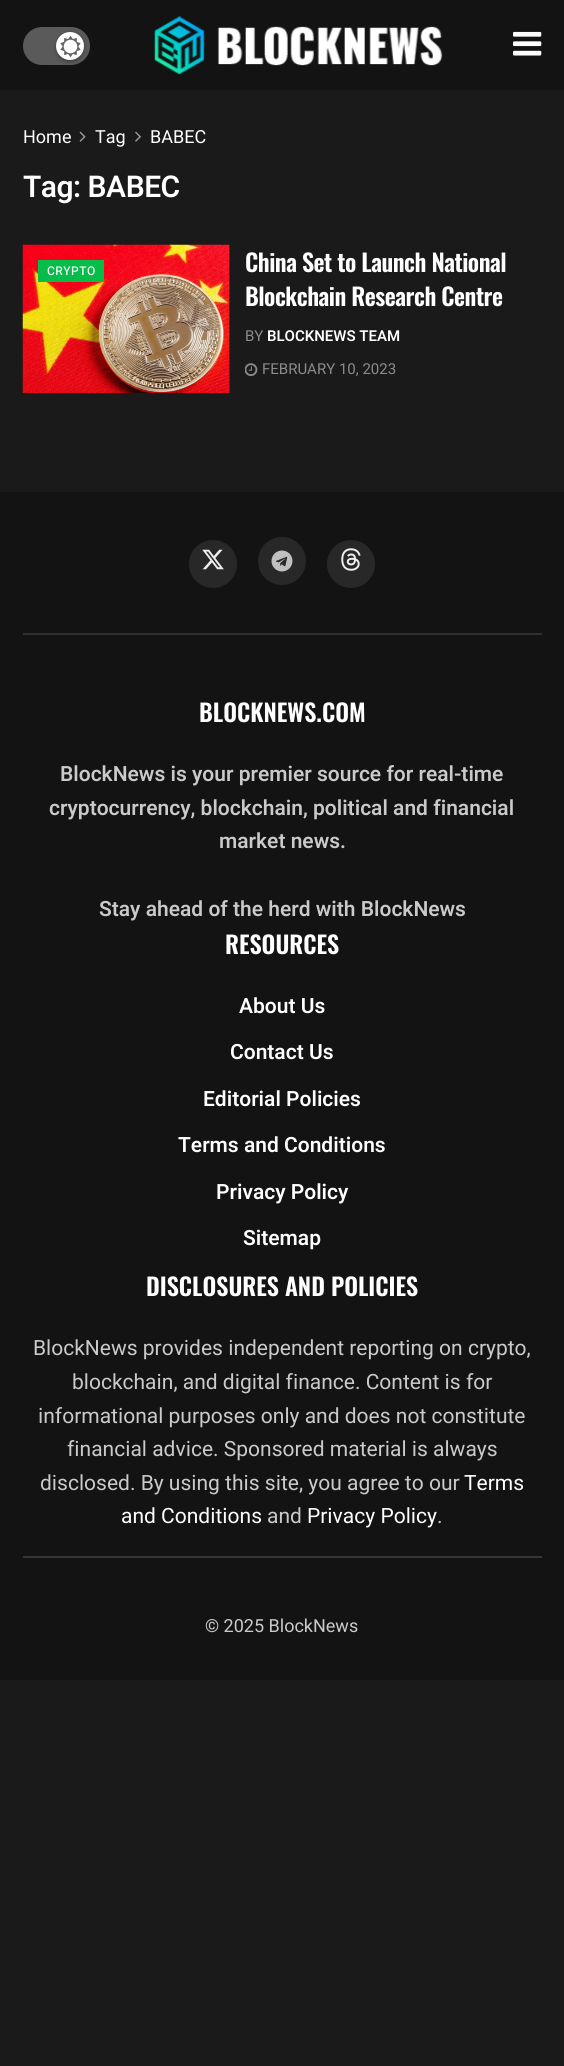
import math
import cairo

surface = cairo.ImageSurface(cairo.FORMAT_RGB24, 564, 2066)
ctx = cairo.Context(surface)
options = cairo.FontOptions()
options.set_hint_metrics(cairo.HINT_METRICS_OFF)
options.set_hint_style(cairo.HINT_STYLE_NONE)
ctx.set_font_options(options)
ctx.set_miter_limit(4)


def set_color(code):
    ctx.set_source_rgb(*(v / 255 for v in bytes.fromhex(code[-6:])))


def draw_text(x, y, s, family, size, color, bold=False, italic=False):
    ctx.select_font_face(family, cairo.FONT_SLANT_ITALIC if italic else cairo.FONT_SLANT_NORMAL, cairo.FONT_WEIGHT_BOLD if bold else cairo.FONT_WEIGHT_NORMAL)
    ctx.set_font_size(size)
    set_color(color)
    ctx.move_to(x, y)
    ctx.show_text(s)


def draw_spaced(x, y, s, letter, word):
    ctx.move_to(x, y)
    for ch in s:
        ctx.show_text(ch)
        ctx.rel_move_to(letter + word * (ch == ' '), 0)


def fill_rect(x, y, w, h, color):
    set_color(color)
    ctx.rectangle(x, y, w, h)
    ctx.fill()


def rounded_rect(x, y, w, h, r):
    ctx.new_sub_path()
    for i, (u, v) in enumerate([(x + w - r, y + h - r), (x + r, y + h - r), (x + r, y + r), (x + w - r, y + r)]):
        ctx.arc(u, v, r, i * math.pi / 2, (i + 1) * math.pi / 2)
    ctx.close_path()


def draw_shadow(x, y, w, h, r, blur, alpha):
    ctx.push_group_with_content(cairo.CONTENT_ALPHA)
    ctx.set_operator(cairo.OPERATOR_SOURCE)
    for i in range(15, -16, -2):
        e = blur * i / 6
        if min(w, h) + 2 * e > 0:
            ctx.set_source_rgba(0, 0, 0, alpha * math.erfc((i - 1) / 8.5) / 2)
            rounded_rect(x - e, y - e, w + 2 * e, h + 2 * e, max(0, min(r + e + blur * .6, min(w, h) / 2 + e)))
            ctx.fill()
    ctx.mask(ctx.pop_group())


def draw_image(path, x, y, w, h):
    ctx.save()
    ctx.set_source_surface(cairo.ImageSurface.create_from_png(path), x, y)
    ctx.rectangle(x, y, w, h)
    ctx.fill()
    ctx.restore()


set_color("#1a1a1a")
ctx.paint()
fill_rect(0, 0, 564, 90, "#131313")
set_color("#5a5a5a")
rounded_rect(23, 27, 67, 38, 19)
ctx.fill()
set_color("#000000")
draw_shadow(56, 33, 28, 29, 14, 2, 0.3)
set_color("#ffffff")
ctx.arc(70, 46, 14, 0, 2 * math.pi)
ctx.fill()
draw_image("assets/img1.png", 60, 36, 21, 21)
draw_image("assets/img2.png", 154, 16, 289, 59)
draw_image("assets/img3.png", 513, 31, 29, 25)
draw_text(23, 143, "Home", "Heebo", 18, "#ffffff")
draw_image("assets/img4.png", 79, 131, 7, 11)
draw_text(95, 143, "Tag", "Heebo", 18, "#ffffff")
draw_image("assets/img5.png", 135, 131, 6, 11)
draw_text(150, 143, "BABEC", "Heebo", 18, "#ffffff")
ctx.select_font_face("Heebo SemiBold")
ctx.set_font_size(30)
draw_spaced(23, 197, "Tag: BABEC", -0.5, 0)
fill_rect(229, 245, 1, 148, "#282828")
draw_image("assets/img6.png", 22, 244, 208, 149)
fill_rect(38, 260, 66, 22, "#07bd4a")
ctx.select_font_face("Heebo Medium")
ctx.set_font_size(12)
set_color("#ffffff")
draw_spaced(47, 275, "CRYPTO", 0.5, 0)
ctx.select_font_face("Oswald SemiBold")
ctx.set_font_size(24)
draw_spaced(245, 272, "China Set to Launch National", -0.5, 0)
draw_spaced(245, 306, "Blockchain Research Centre", -0.5, 0)
draw_text(245, 341, "BY", "Heebo", 15, "#8b8b8b")
draw_text(267, 341, "BLOCKNEWS TEAM", "Heebo SemiBold", 15, "#ffffff")
draw_image("assets/img7.png", 245, 363, 13, 13)
draw_text(262, 374, "FEBRUARY 10, 2023", "Heebo", 15, "#8b8b8b")
fill_rect(0, 492, 564, 1188, "#131313")
fill_rect(23, 633, 519, 2, "#303030")
set_color("#282828")
ctx.new_path()
ctx.arc(213, 564, 24, 0, 2 * math.pi)
ctx.fill()
draw_image("assets/img8.png", 202, 549, 22, 21)
ctx.arc(282, 561, 24, 0, 2 * math.pi)
ctx.fill()
draw_image("assets/img9.png", 271, 550, 22, 22)
ctx.arc(351, 564, 24, 0, 2 * math.pi)
ctx.fill()
draw_image("assets/img10.png", 341, 548, 20, 23)
draw_text(199, 722, "BLOCKNEWS.COM", "Oswald SemiBold", 24, "#ffffff")
draw_text(60, 781, "BlockNews is your premier source for real-time", "Heebo SemiBold", 21, "#cacaca")
draw_text(49, 815, "cryptocurrency, blockchain, political and financial", "Heebo SemiBold", 21, "#cacaca")
draw_text(219, 848, "market news.", "Heebo SemiBold", 21, "#cacaca")
draw_text(99, 916, "Stay ahead of the herd with BlockNews", "Heebo SemiBold", 21, "#cacaca")
draw_text(225, 954, "RESOURCES", "Oswald SemiBold", 24, "#ffffff")
draw_text(239, 1013, "About Us", "Heebo SemiBold", 21, "#ffffff")
draw_text(230, 1059, "Contact Us", "Heebo SemiBold", 21, "#ffffff")
draw_text(203, 1106, "Editorial Policies", "Heebo SemiBold", 21, "#ffffff")
draw_text(178, 1152, "Terms and Conditions", "Heebo SemiBold", 21, "#ffffff")
draw_text(216, 1199, "Privacy Policy", "Heebo SemiBold", 21, "#ffffff")
draw_text(243, 1245, "Sitemap", "Heebo SemiBold", 21, "#ffffff")
draw_text(146, 1296, "DISCLOSURES AND POLICIES", "Oswald SemiBold", 24, "#ffffff")
draw_text(33, 1355, "BlockNews provides independent reporting on crypto,", "Heebo", 21, "#cacaca")
draw_text(72, 1389, "blockchain, and digital finance. Content is for", "Heebo", 21, "#cacaca")
draw_text(38, 1423, "informational purposes only and does not constitute", "Heebo", 21, "#cacaca")
draw_text(67, 1456, "financial advice. Sponsored material is always", "Heebo", 21, "#cacaca")
draw_text(40, 1490, "disclosed. By using this site, you agree to our", "Heebo", 21, "#cacaca")
draw_text(464, 1490, "Terms", "Heebo", 21, "#ffffff")
draw_text(121, 1523, "and Conditions", "Heebo", 21, "#ffffff")
draw_text(267, 1523, "and", "Heebo", 21, "#cacaca")
draw_text(307, 1523, "Privacy Policy", "Heebo", 21, "#ffffff")
draw_text(437, 1523, ".", "Heebo", 21, "#cacaca")
fill_rect(23, 1556, 519, 2, "#363636")
draw_text(205, 1632, "© 2025 BlockNews", "Heebo", 18, "#cacaca")
surface.write_to_png("output.png")
